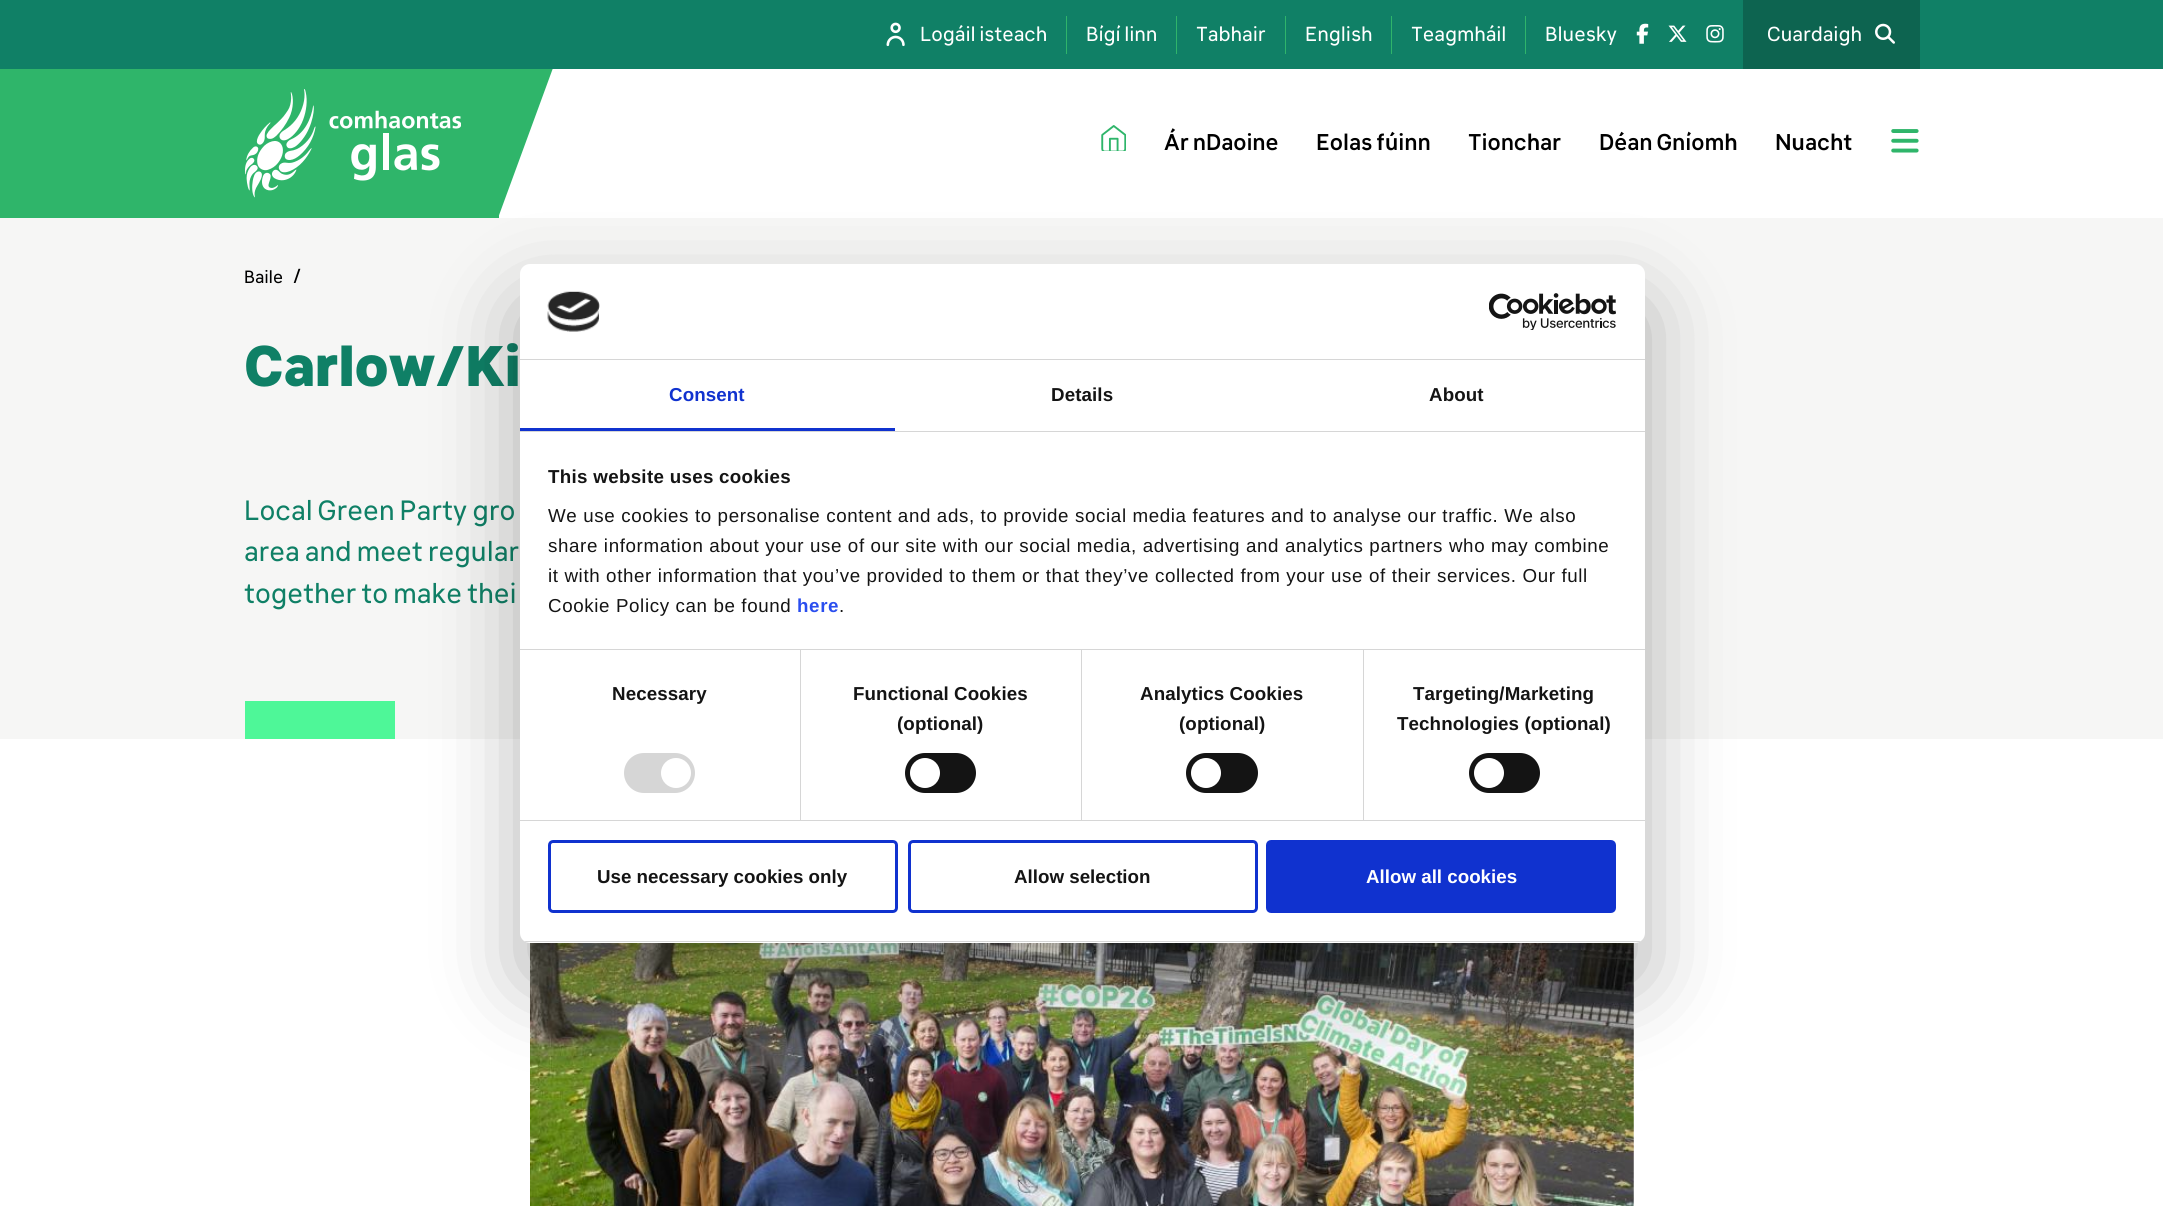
import math
import cairo

surface = cairo.ImageSurface(cairo.FORMAT_RGB24, 2163, 1206)
ctx = cairo.Context(surface)
options = cairo.FontOptions()
options.set_hint_metrics(cairo.HINT_METRICS_OFF)
options.set_hint_style(cairo.HINT_STYLE_NONE)
ctx.set_font_options(options)
ctx.set_miter_limit(4)


def set_color(code):
    ctx.set_source_rgb(*(v / 255 for v in bytes.fromhex(code[-6:])))


def draw_text(x, y, s, family, size, color, bold=False, italic=False):
    ctx.select_font_face(family, cairo.FONT_SLANT_ITALIC if italic else cairo.FONT_SLANT_NORMAL, cairo.FONT_WEIGHT_BOLD if bold else cairo.FONT_WEIGHT_NORMAL)
    ctx.set_font_size(size)
    set_color(color)
    ctx.move_to(x, y)
    ctx.show_text(s)


def draw_spaced(x, y, s, letter, word):
    ctx.move_to(x, y)
    for ch in s:
        ctx.show_text(ch)
        ctx.rel_move_to(letter + word * (ch == ' '), 0)


def fill_rect(x, y, w, h, color):
    set_color(color)
    ctx.rectangle(x, y, w, h)
    ctx.fill()


def rounded_rect(x, y, w, h, r):
    ctx.new_sub_path()
    for i, (u, v) in enumerate([(x + w - r, y + h - r), (x + r, y + h - r), (x + r, y + r), (x + w - r, y + r)]):
        ctx.arc(u, v, r, i * math.pi / 2, (i + 1) * math.pi / 2)
    ctx.close_path()


def draw_shadow(x, y, w, h, r, blur, alpha):
    ctx.push_group_with_content(cairo.CONTENT_ALPHA)
    ctx.set_operator(cairo.OPERATOR_SOURCE)
    for i in range(15, -16, -2):
        e = blur * i / 6
        if min(w, h) + 2 * e > 0:
            ctx.set_source_rgba(0, 0, 0, alpha * math.erfc((i - 1) / 8.5) / 2)
            rounded_rect(x - e, y - e, w + 2 * e, h + 2 * e, max(0, min(r + e + blur * .6, min(w, h) / 2 + e)))
            ctx.fill()
    ctx.mask(ctx.pop_group())


def draw_image(path, x, y, w, h):
    ctx.save()
    ctx.set_source_surface(cairo.ImageSurface.create_from_png(path), x, y)
    ctx.rectangle(x, y, w, h)
    ctx.fill()
    ctx.restore()


set_color("#ffffff")
ctx.paint()
set_color("#2fb56a")
ctx.new_path()
ctx.move_to(498, 68)
ctx.line_to(553, 68)
ctx.line_to(498, 218)
ctx.fill()
fill_rect(0, 0, 2163, 69, "#108066")
draw_image("assets/img1.png", 886, 22, 19, 25)
draw_text(920, 41, "Logáil isteach", "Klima", 20, "#ffffff")
fill_rect(1066, 16, 1, 38, "#2fb56a")
draw_text(1086, 41, "Bígí linn", "Klima", 20, "#ffffff")
fill_rect(1176, 16, 1, 38, "#2fb56a")
draw_text(1196, 41, "Tabhair", "Klima", 20, "#ffffff")
fill_rect(1285, 16, 1, 38, "#2fb56a")
draw_text(1305, 41, "English", "Klima", 20, "#ffffff")
fill_rect(1391, 16, 1, 38, "#2fb56a")
draw_text(1411, 41, "Teagmháil", "Klima", 20, "#ffffff")
fill_rect(1525, 16, 1, 38, "#2fb56a")
draw_text(1545, 41, "Bluesky", "Klima", 20, "#ffffff")
draw_image("assets/img2.png", 1636, 23, 13, 21)
draw_image("assets/img3.png", 1668, 25, 19, 17)
draw_image("assets/img4.png", 1706, 25, 18, 18)
fill_rect(1743, 0, 177, 69, "#0d6450")
draw_text(1767, 41, "Cuardaigh", "Klima", 20, "#ffffff")
draw_image("assets/img5.png", 1875, 23, 20, 21)
fill_rect(0, 69, 499, 149, "#2fb56a")
draw_image("assets/img6.png", 245, 89, 216, 109)
draw_image("assets/img7.png", 1101, 125, 25, 26)
draw_text(1164, 150, "Ár nDaoine", "Klima Medium", 22.5, "#000000")
draw_text(1316, 150, "Eolas fúinn", "Klima Medium", 22.5, "#000000")
draw_text(1468, 150, "Tionchar", "Klima Medium", 22.5, "#000000")
draw_text(1599, 150, "Déan Gníomh", "Klima Medium", 22.5, "#000000")
draw_text(1775, 150, "Nuacht", "Klima Medium", 22.5, "#000000")
draw_image("assets/img8.png", 1891, 129, 28, 24)
fill_rect(0, 218, 2163, 521, "#f6f6f5")
draw_text(244, 283, "Baile", "Klima", 17.5, "#000000")
draw_text(293, 283, "/", "Klima", 20, "#000000")
draw_text(244, 386, "Carlow/Ki", "Klima Black", 56.25, "#0f8066")
draw_text(244, 520, "Local Green Party gro", "Klima", 27.5, "#0f8066")
draw_text(244, 561, "area and meet regular", "Klima", 27.5, "#0f8066")
draw_text(244, 603, "together to make thei", "Klima", 27.5, "#0f8066")
fill_rect(245, 701, 150, 38, "#4ef798")
draw_image("assets/img9.png", 530, 943, 1104, 263)
set_color("#000000")
draw_shadow(520, 304, 1125, 679, 10, 42.5, 0.3)
set_color("#ffffff")
rounded_rect(520, 264, 1125, 679, 10)
ctx.fill()
fill_rect(520, 359, 1125, 1, "#d6d6d6")
draw_image("assets/img10.png", 547, 291, 53, 41)
draw_image("assets/img11.png", 1489, 293, 127, 37)
fill_rect(520, 431, 1125, 1, "#d6d6d6")
fill_rect(520, 428, 375, 3, "#1032cf")
ctx.select_font_face("Liberation Sans", cairo.FONT_SLANT_NORMAL, cairo.FONT_WEIGHT_BOLD)
ctx.set_font_size(18.75)
draw_spaced(669, 401, "Consent", 0.1, 0)
set_color("#141414")
draw_spaced(1051, 401, "Details", 0.1, 0)
draw_spaced(1429, 401, "About", 0.1, 0)
fill_rect(520, 649, 1125, 1, "#d6d6d6")
set_color("#141414")
draw_spaced(548, 483, "This website uses cookies", 0.3, 0)
ctx.select_font_face("Liberation Sans")
draw_spaced(548, 522, "We use cookies to personalise content and ads, to provide social media features and to analyse our traffic. We also", 0.62, 0)
draw_spaced(548, 552, "share information about your use of our site with our social media, advertising and analytics partners who may combine", 0.62, 0)
draw_spaced(548, 582, "it with other information that you’ve provided to them or that they’ve collected from your use of their services. Our full", 0.62, 0)
draw_spaced(548, 612, "Cookie Policy can be found", 0.62, 0)
ctx.select_font_face("Liberation Sans", cairo.FONT_SLANT_NORMAL, cairo.FONT_WEIGHT_BOLD)
set_color("#2a4eef")
draw_spaced(797, 612, "here", 0.62, 0)
ctx.select_font_face("Liberation Sans")
set_color("#141414")
draw_spaced(839, 612, ".", 0.62, 0)
fill_rect(520, 820, 1125, 1, "#d6d6d6")
fill_rect(800, 650, 1, 170, "#d6d6d6")
ctx.select_font_face("Liberation Sans", cairo.FONT_SLANT_NORMAL, cairo.FONT_WEIGHT_BOLD)
set_color("#141414")
draw_spaced(612, 700, "Necessary", 0.1, 0)
set_color("#d6d6d6")
rounded_rect(624, 753, 71, 40, 20)
ctx.fill()
set_color("#ffffff")
ctx.arc(676, 773, 15, 0, 2 * math.pi)
ctx.fill()
fill_rect(1081, 650, 1, 170, "#d6d6d6")
set_color("#141414")
draw_spaced(853, 700, "Functional Cookies", 0.1, 0)
draw_spaced(897, 730, "(optional)", 0.1, 0)
rounded_rect(905, 753, 71, 40, 20)
ctx.fill()
set_color("#ffffff")
ctx.arc(925, 773, 15, 0, 2 * math.pi)
ctx.fill()
fill_rect(1363, 650, 1, 170, "#d6d6d6")
set_color("#141414")
draw_spaced(1140, 700, "Analytics Cookies", 0.1, 0)
draw_spaced(1179, 730, "(optional)", 0.1, 0)
rounded_rect(1186, 753, 72, 40, 20)
ctx.fill()
set_color("#ffffff")
ctx.arc(1206, 773, 15, 0, 2 * math.pi)
ctx.fill()
set_color("#141414")
draw_spaced(1413, 700, "Targeting/Marketing", 0.1, 0)
draw_spaced(1397, 730, "Technologies (optional)", 0.1, 0)
rounded_rect(1469, 753, 71, 40, 20)
ctx.fill()
set_color("#ffffff")
ctx.arc(1489, 773, 15, 0, 2 * math.pi)
ctx.fill()
ctx.save()
rounded_rect(520, 264, 1125, 679, 10)
ctx.clip()
fill_rect(520, 941, 1125, 1, "#d6d6d6")
ctx.restore()
rounded_rect(549.5, 841.5, 347, 70, 3.5)
set_color("#1032cf")
ctx.set_line_width(3)
ctx.stroke()
draw_text(597, 883, "Use necessary cookies only", "Liberation Sans", 18.75, "#141414", bold=True)
rounded_rect(909.5, 841.5, 347, 70, 3.5)
set_color("#1032cf")
ctx.stroke()
draw_text(1014, 883, "Allow selection", "Liberation Sans", 18.75, "#141414", bold=True)
set_color("#1032cf")
rounded_rect(1267.5, 841.5, 347, 70, 3.5)
ctx.fill_preserve()
ctx.stroke()
draw_text(1366, 883, "Allow all cookies", "Liberation Sans", 18.75, "#ffffff", bold=True)
surface.write_to_png("output.png")
